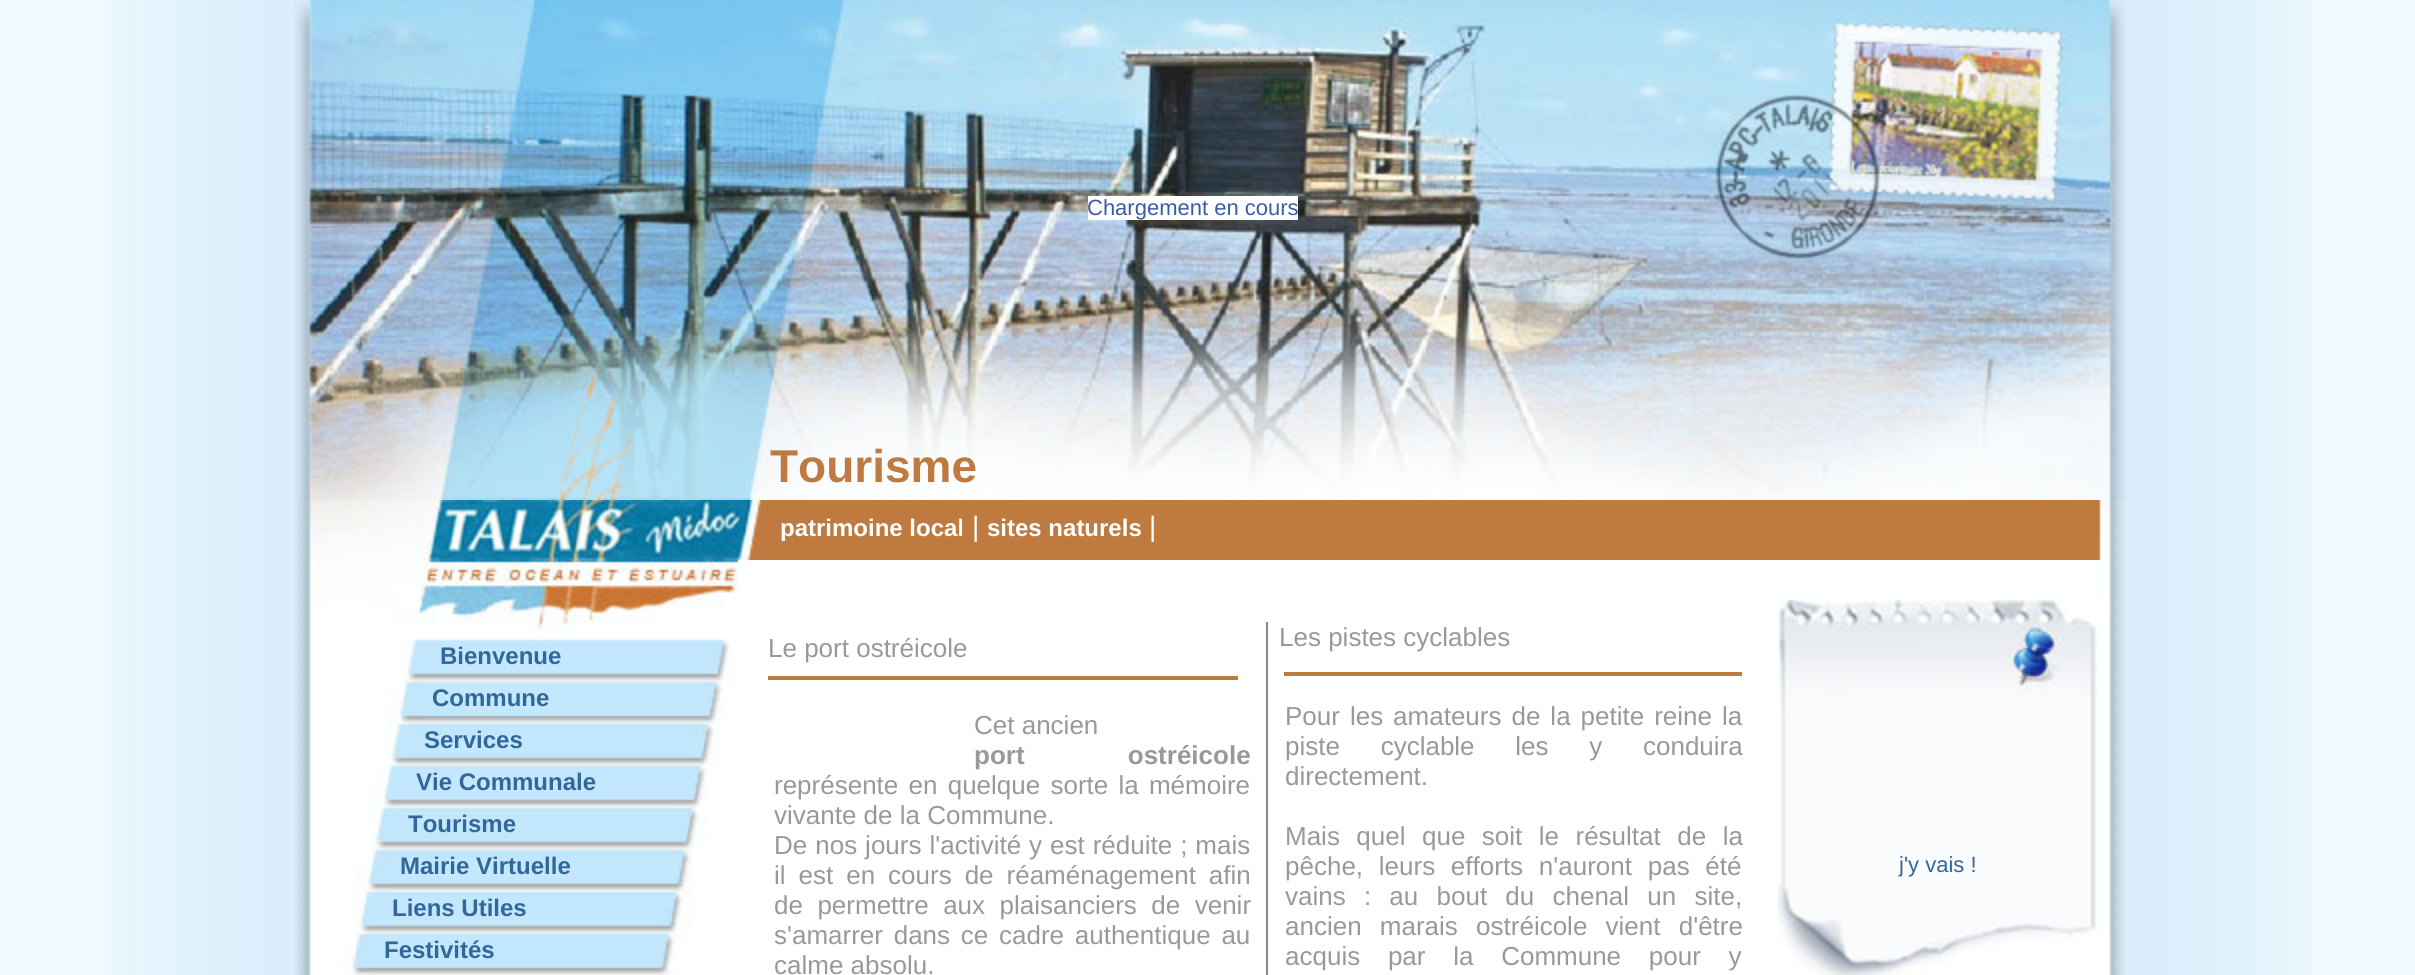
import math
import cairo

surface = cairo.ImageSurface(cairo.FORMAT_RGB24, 2415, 975)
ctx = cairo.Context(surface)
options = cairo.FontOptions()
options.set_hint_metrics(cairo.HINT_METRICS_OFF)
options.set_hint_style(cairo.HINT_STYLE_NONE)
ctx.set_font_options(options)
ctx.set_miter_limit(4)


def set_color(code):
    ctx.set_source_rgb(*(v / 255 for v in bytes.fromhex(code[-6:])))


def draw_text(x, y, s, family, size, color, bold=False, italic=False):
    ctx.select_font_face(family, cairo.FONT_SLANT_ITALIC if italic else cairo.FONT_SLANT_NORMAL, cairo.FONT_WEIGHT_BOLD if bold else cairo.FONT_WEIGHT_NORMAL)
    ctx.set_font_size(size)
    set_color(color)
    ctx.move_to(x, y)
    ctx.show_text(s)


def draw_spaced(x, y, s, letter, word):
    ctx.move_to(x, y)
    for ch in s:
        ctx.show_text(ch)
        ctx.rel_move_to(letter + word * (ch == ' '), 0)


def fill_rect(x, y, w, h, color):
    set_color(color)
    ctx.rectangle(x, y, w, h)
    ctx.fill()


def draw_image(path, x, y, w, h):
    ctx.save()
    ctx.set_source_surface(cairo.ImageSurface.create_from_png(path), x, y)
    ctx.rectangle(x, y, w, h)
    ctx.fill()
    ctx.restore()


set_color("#eff9fe")
ctx.paint()
draw_image("assets/img1.png", 105, 0, 2207, 975)
draw_image("assets/img2.png", 293, 0, 1833, 975)
draw_image("assets/img3.png", 295, 0, 1832, 500)
fill_rect(1088, 196, 210, 24, "#ffffff")
draw_text(1087, 215, "Chargement en cours", "Liberation Sans", 22, "#3a5ca6")
draw_text(770, 482, "Tourisme", "Liberation Sans", 46, "#bf7a3f", bold=True)
draw_image("assets/img4.png", 309, 500, 1801, 60)
draw_text(780, 536, "patrimoine local", "Liberation Sans", 24, "#ffffff", bold=True)
draw_text(972, 536, "|", "Liberation Sans", 28, "#ffffff")
draw_text(987, 536, "sites naturels", "Liberation Sans", 24, "#ffffff", bold=True)
draw_text(1149, 536, "|", "Liberation Sans", 28, "#ffffff")
draw_image("assets/img5.png", 316, 560, 422, 415)
draw_text(440, 664, "Bienvenue", "Liberation Sans", 24, "#336699", bold=True)
draw_text(432, 706, "Commune", "Liberation Sans", 24, "#336699", bold=True)
draw_text(424, 748, "Services", "Liberation Sans", 24, "#336699", bold=True)
draw_text(416, 790, "Vie Communale", "Liberation Sans", 24, "#336699", bold=True)
draw_text(408, 832, "Tourisme", "Liberation Sans", 24, "#336699", bold=True)
draw_text(400, 874, "Mairie Virtuelle", "Liberation Sans", 24, "#336699", bold=True)
draw_text(392, 916, "Liens Utiles", "Liberation Sans", 24, "#336699", bold=True)
draw_text(384, 958, "Festivités", "Liberation Sans", 24, "#336699", bold=True)
draw_text(768, 657, "Le port ostréicole", "Liberation Sans", 26, "#999999")
fill_rect(768, 676, 470, 4, "#bf7a3f")
draw_text(974, 734, "Cet ancien", "Liberation Sans", 26, "#999999")
ctx.select_font_face("Liberation Sans", cairo.FONT_SLANT_NORMAL, cairo.FONT_WEIGHT_BOLD)
draw_spaced(974, 764, "port ostréicole", 0, 96)
ctx.select_font_face("Liberation Sans")
draw_spaced(774, 794, "représente en quelque sorte la mémoire", 0, 3)
draw_text(774, 824, "vivante de la Commune.", "Liberation Sans", 26, "#999999")
draw_spaced(774, 854, "De nos jours l'activité y est réduite ; mais", 0, 0.75)
draw_spaced(774, 884, "il est en cours de réaménagement afin", 0, 5.75)
draw_spaced(774, 914, "de permettre aux plaisanciers de venir", 0, 7.25)
draw_spaced(774, 944, "s'amarrer dans ce cadre authentique au", 0, 3.5)
draw_text(774, 974, "calme absolu.", "Liberation Sans", 26, "#999999")
fill_rect(1266, 622, 2, 353, "#888888")
draw_text(1279, 646, "Les pistes cyclables", "Liberation Sans", 26, "#999999")
fill_rect(1284, 672, 458, 4, "#bf7a3f")
set_color("#999999")
draw_spaced(1285, 725, "Pour les amateurs de la petite reine la", 0, 2.75)
draw_spaced(1285, 755, "piste cyclable les y conduira", 0, 33.5)
draw_text(1285, 785, "directement.", "Liberation Sans", 26, "#999999")
draw_spaced(1285, 845, "Mais quel que soit le résultat de la", 0, 9.25)
draw_spaced(1285, 875, "pêche, leurs efforts n'auront pas été", 0, 8.5)
draw_spaced(1285, 905, "vains : au bout du chenal un site,", 0, 11)
draw_spaced(1285, 935, "ancien marais ostréicole vient d'être", 0, 11)
draw_spaced(1285, 965, "acquis par la Commune pour y", 0, 20.5)
draw_image("assets/img6.png", 1778, 600, 320, 120)
draw_image("assets/img7.png", 1780, 720, 317, 156)
draw_image("assets/img8.png", 1778, 876, 320, 99)
draw_text(1899, 872, "j'y vais !", "Liberation Sans", 22, "#336699")
surface.write_to_png("output.png")
